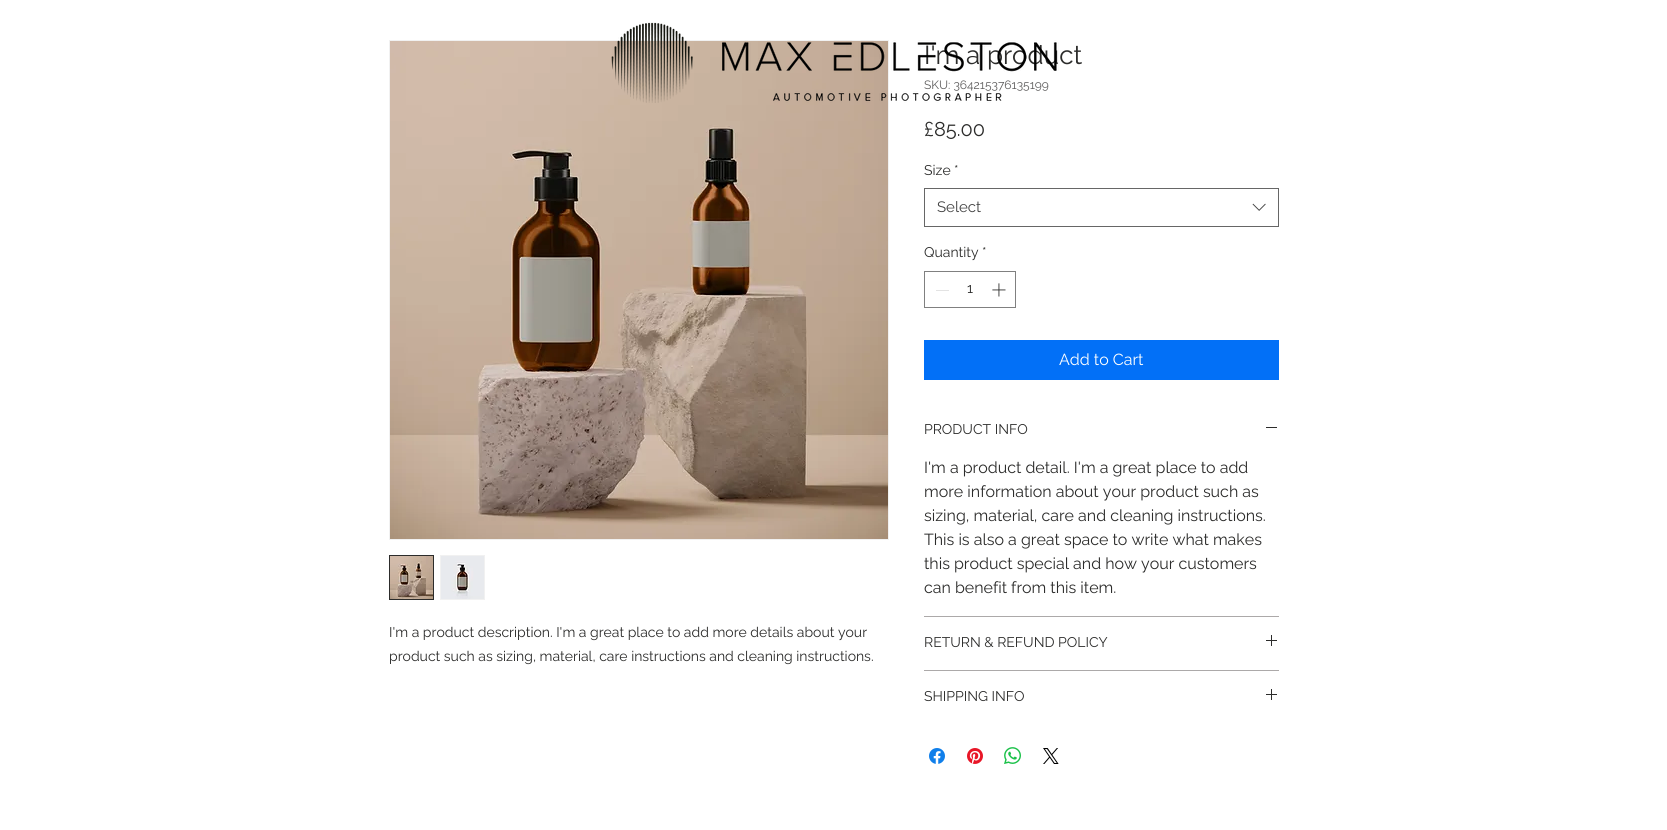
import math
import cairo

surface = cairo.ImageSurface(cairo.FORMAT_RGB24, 1667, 830)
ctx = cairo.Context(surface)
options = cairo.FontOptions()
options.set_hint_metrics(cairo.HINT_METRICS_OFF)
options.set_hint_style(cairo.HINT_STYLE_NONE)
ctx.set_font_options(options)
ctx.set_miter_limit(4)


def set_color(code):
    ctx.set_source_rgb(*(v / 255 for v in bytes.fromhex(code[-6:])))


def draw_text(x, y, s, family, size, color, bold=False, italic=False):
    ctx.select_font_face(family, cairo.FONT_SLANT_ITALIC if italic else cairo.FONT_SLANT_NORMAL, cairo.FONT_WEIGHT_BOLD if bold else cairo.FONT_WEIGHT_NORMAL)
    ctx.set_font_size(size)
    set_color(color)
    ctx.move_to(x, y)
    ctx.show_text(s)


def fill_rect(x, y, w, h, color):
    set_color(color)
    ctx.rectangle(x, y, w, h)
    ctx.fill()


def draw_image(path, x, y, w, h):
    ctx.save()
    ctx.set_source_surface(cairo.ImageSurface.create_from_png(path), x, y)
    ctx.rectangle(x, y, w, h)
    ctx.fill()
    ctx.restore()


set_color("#ffffff")
ctx.paint()
ctx.rectangle(389.5, 40.5, 499, 499)
set_color("#f1f1f1")
ctx.set_line_width(1)
ctx.stroke()
draw_image("assets/img2.png", 390, 41, 498, 498)
draw_text(924, 64, "I'm a product", "Raleway", 26, "#2c2c2b")
draw_text(924, 89, "SKU: 364215376135199", "Raleway", 12, "#5e5d5d")
draw_image("assets/img1.png", 611, 22, 448, 81)
ctx.rectangle(389.5, 555.5, 44, 44)
set_color("#2c2c2b")
ctx.stroke()
draw_image("assets/img3.png", 390, 556, 43, 43)
fill_rect(440, 555, 45, 45, "#f1f1f1")
draw_image("assets/img4.png", 441, 556, 43, 43)
draw_text(389, 637, "I'm a product description. I'm a great place to add more details about your", "Raleway", 14, "#2c2c2b")
draw_text(389, 661, "product such as sizing, material, care instructions and cleaning instructions.", "Raleway", 14, "#2c2c2b")
draw_text(924, 136, "£85.00", "Raleway", 20, "#2c2c2b")
draw_text(924, 175, "Size", "Raleway", 14, "#2c2c2b")
draw_text(954, 175, "*", "Raleway", 14, "#2c2c2b")
ctx.rectangle(924.5, 188.5, 354, 38)
set_color("#666666")
ctx.stroke()
draw_text(937, 212, "Select", "Raleway", 15, "#444444")
draw_image("assets/img5.png", 1252, 203, 14, 8)
draw_text(924, 257, "Quantity", "Raleway", 14, "#2c2c2b")
draw_text(982, 257, "*", "Raleway", 14, "#2c2c2b")
ctx.rectangle(924.5, 271.5, 91, 36)
set_color("#808080")
ctx.stroke()
fill_rect(936, 290, 13, 1, "#e3e3e3")
draw_text(967, 293, "1", "Raleway", 14, "#2c2c2b")
draw_image("assets/img6.png", 992, 283, 14, 14)
fill_rect(924, 340, 355, 40, "#0270f7")
draw_text(1059, 365, "Add to Cart", "Raleway", 16, "#ffffff")
fill_rect(924, 616, 355, 1, "#aca9a9")
draw_text(924, 434, "PRODUCT INFO", "Raleway", 14, "#2c2c2b")
fill_rect(1266, 427, 11, 1, "#2c2c2b")
draw_text(924, 473, "I'm a product detail. I'm a great place to add", "Raleway", 16, "#2c2c2b")
draw_text(924, 497, "more information about your product such as", "Raleway", 16, "#2c2c2b")
draw_text(924, 521, "sizing, material, care and cleaning instructions.", "Raleway", 16, "#2c2c2b")
draw_text(924, 545, "This is also a great space to write what makes", "Raleway", 16, "#2c2c2b")
draw_text(924, 569, "this product special and how your customers", "Raleway", 16, "#2c2c2b")
draw_text(924, 593, "can benefit from this item.", "Raleway", 16, "#2c2c2b")
fill_rect(924, 670, 355, 1, "#aca9a9")
draw_text(924, 647, "RETURN & REFUND POLICY", "Raleway", 14, "#2c2c2b")
draw_image("assets/img7.png", 1266, 635, 11, 11)
draw_text(924, 701, "SHIPPING INFO", "Raleway", 14, "#2c2c2b")
draw_image("assets/img7.png", 1266, 689, 11, 11)
draw_image("assets/img8.png", 929, 748, 16, 16)
draw_image("assets/img9.png", 967, 748, 16, 16)
draw_image("assets/img10.png", 1004, 747, 17, 17)
draw_image("assets/img11.png", 1043, 748, 16, 16)
surface.write_to_png("output.png")
